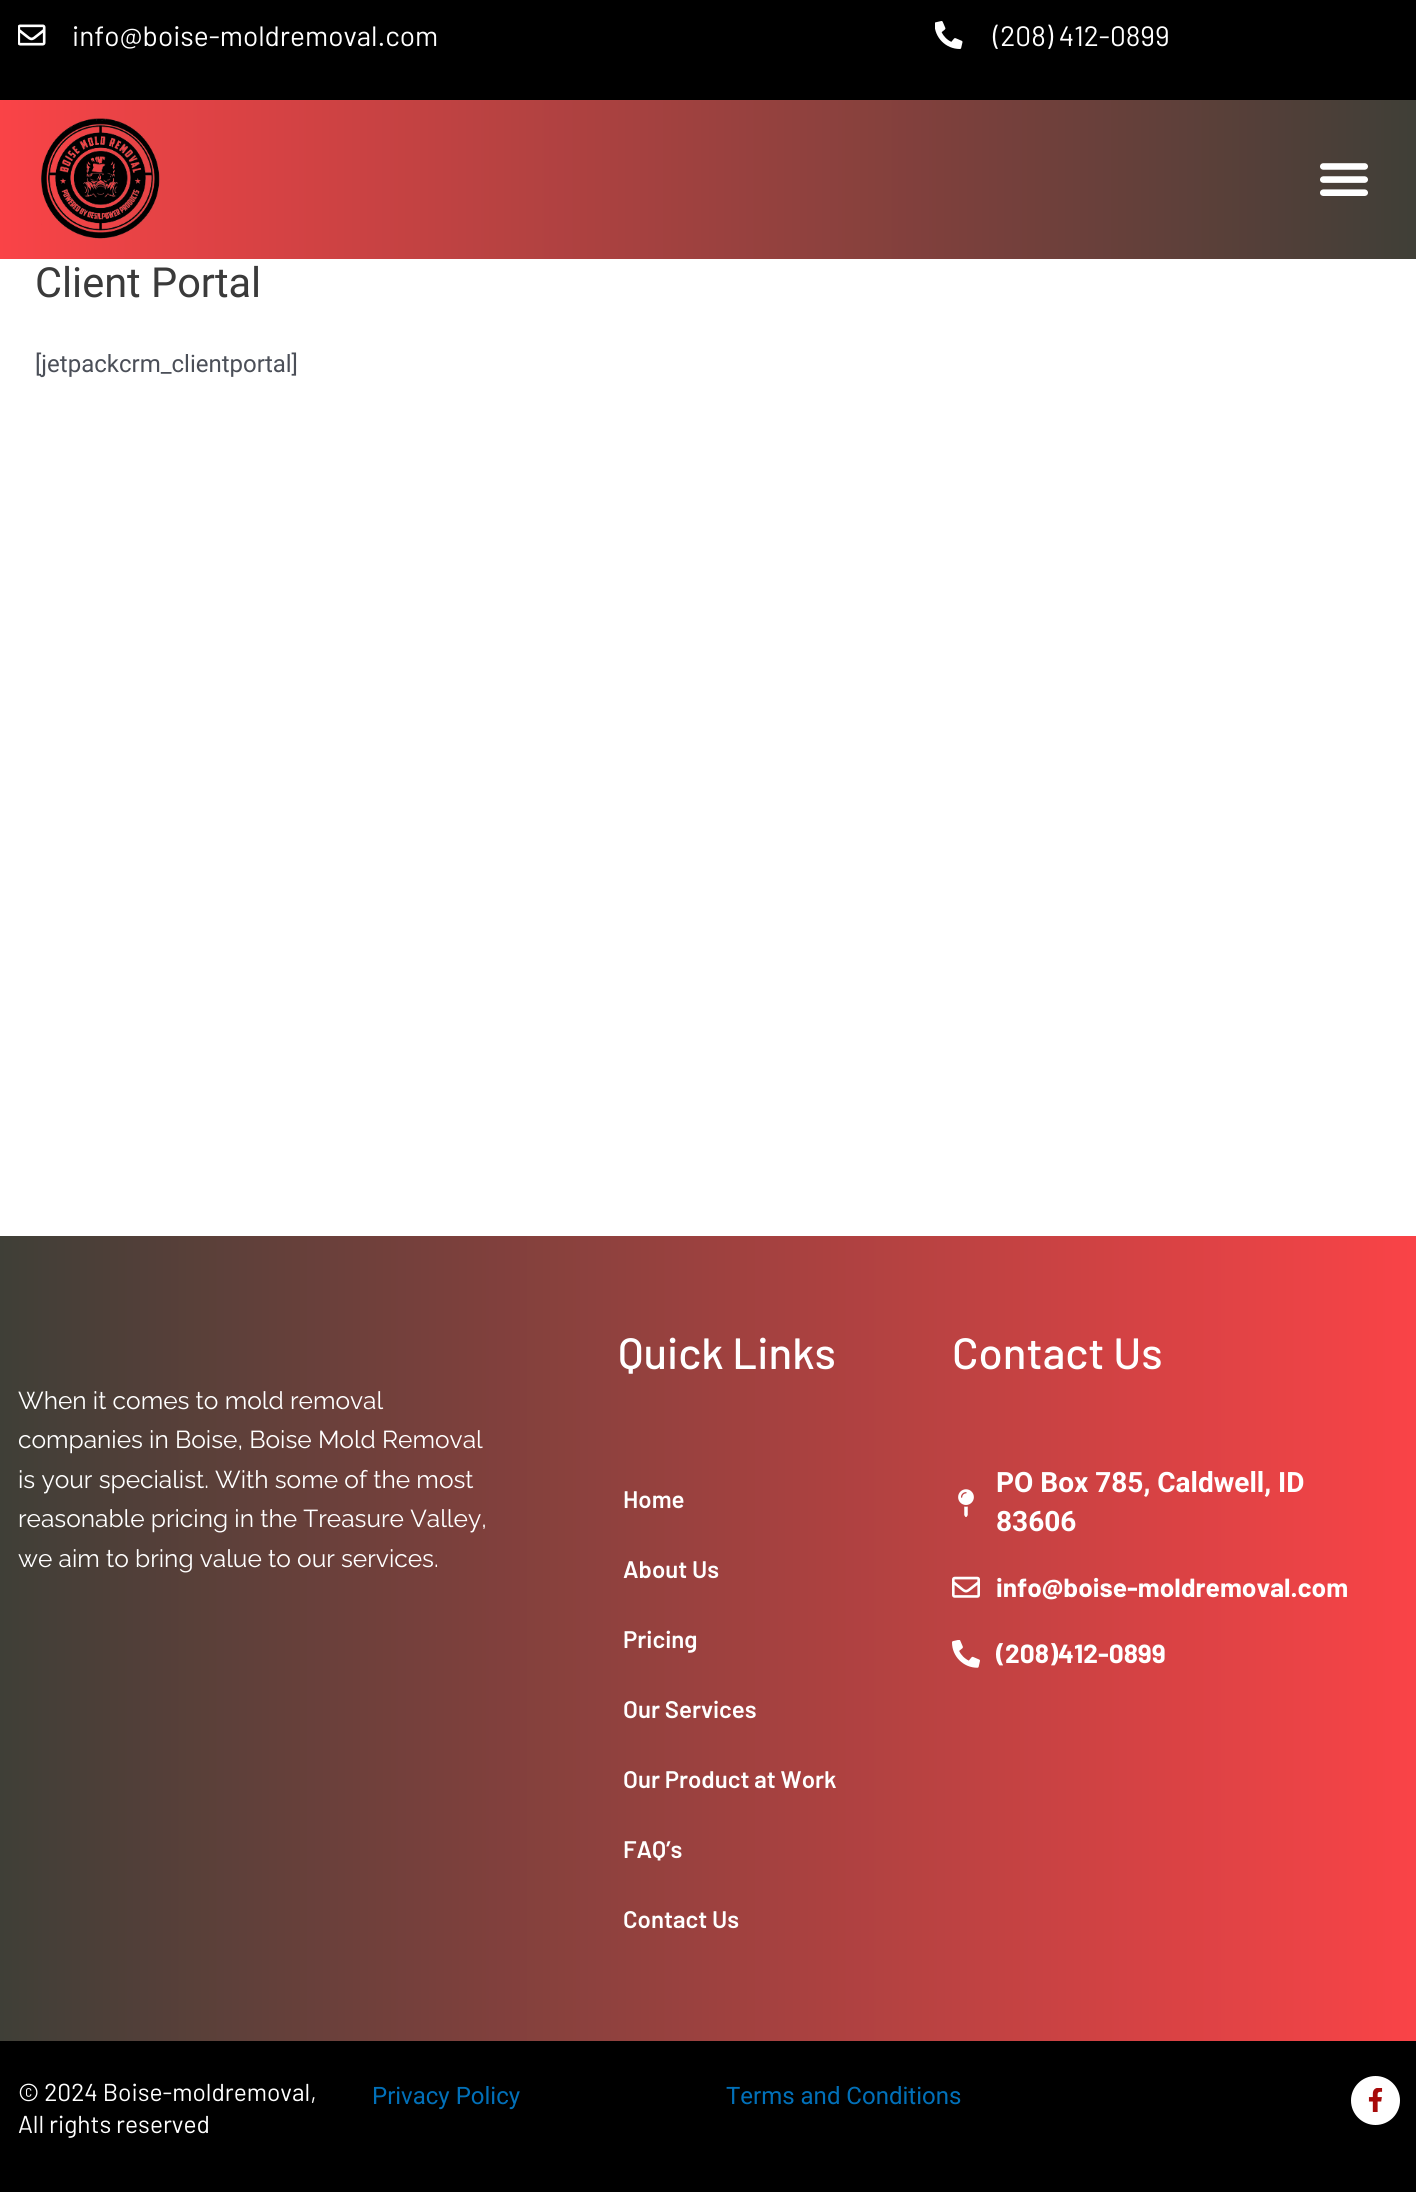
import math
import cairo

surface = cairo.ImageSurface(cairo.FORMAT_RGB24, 1416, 2192)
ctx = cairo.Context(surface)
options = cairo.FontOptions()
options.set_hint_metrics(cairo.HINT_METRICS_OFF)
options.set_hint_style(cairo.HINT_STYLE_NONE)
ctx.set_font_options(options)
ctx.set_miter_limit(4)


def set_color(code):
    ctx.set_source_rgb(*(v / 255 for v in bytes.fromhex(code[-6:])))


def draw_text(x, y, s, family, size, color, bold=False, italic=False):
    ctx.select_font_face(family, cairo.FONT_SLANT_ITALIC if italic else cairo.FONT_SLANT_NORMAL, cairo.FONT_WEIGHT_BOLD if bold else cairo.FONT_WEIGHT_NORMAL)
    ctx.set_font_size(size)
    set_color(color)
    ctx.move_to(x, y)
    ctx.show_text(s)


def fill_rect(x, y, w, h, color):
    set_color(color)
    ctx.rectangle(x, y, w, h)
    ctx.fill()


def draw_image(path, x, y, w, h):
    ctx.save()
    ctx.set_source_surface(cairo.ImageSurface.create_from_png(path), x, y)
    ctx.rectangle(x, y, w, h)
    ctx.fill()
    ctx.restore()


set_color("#ffffff")
ctx.paint()
fill_rect(0, 0, 1416, 100, "#000000")
draw_image("assets/img1.png", 18, 24, 28, 22)
draw_text(72, 46, "info@boise-moldremoval.com", "Barlow", 28, "#ffffff")
draw_image("assets/img2.png", 935, 21, 28, 28)
draw_text(993, 46, "(208) 412-0899", "Barlow", 28, "#ffffff")
gradient = cairo.LinearGradient(0, 179, 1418, 179)
gradient.add_color_stop_rgba(0, 0.98, 0.263, 0.278, 1)
gradient.add_color_stop_rgba(1, 0.247, 0.247, 0.216, 1)
ctx.set_source(gradient)
ctx.rectangle(0, 100, 1416, 159)
ctx.fill()
draw_image("assets/img3.png", 41, 118, 119, 121)
draw_image("assets/img4.png", 1320, 163, 48, 33)
draw_text(35, 297, "Client Portal", "Roboto", 41.5, "#3a3a3a")
draw_text(35, 372, "[jetpackcrm_clientportal]", "Roboto", 24, "#4b4f58")
gradient = cairo.LinearGradient(0, 1638, 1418, 1638)
gradient.add_color_stop_rgba(0, 0.247, 0.247, 0.216, 1)
gradient.add_color_stop_rgba(1, 0.98, 0.263, 0.278, 1)
ctx.set_source(gradient)
ctx.rectangle(0, 1236, 1416, 805)
ctx.fill()
draw_text(18, 1409, "When it comes to mold removal", "Raleway", 24.5, "#ffffff")
draw_text(18, 1448, "companies in Boise, Boise Mold Removal", "Raleway", 24.5, "#ffffff")
draw_text(18, 1488, "is your specialist. With some of the most", "Raleway", 24.5, "#ffffff")
draw_text(18, 1527, "reasonable pricing in the Treasure Valley,", "Raleway", 24.5, "#ffffff")
draw_text(18, 1567, "we aim to bring value to our services.", "Raleway", 24.5, "#ffffff")
draw_text(618, 1369, "Quick Links", "Barlow Medium", 43.75, "#ffffff")
draw_text(623, 1508, "Home", "Barlow SemiBold", 24, "#ffffff")
draw_text(623, 1578, "About Us", "Barlow SemiBold", 24, "#ffffff")
draw_text(623, 1648, "Pricing", "Barlow SemiBold", 24, "#ffffff")
draw_text(623, 1718, "Our Services", "Barlow SemiBold", 24, "#ffffff")
draw_text(623, 1788, "Our Product at Work", "Barlow SemiBold", 24, "#ffffff")
draw_text(623, 1858, "FAQ’s", "Barlow SemiBold", 24, "#ffffff")
draw_text(623, 1928, "Contact Us", "Barlow SemiBold", 24, "#ffffff")
draw_text(952, 1369, "Contact Us", "Barlow Medium", 43.75, "#ffffff")
draw_image("assets/img5.png", 958, 1489, 16, 28)
draw_text(996, 1492, "PO Box 785, Caldwell, ID", "Roboto", 28, "#ffffff", bold=True)
draw_text(996, 1531, "83606", "Roboto", 28, "#ffffff", bold=True)
draw_image("assets/img6.png", 952, 1576, 28, 22)
draw_text(996, 1597, "info@boise-moldremoval.com", "Barlow", 26.25, "#ffffff", bold=True)
draw_image("assets/img7.png", 952, 1640, 28, 28)
draw_text(996, 1663, "(208)412-0899", "Barlow", 26.25, "#ffffff", bold=True)
fill_rect(0, 2041, 1416, 151, "#000000")
draw_text(18, 2101, "© 2024 Boise-moldremoval,", "Barlow", 24.5, "#ffffff")
draw_text(18, 2133, "All rights reserved", "Barlow", 24.5, "#ffffff")
draw_text(372, 2104, "Privacy Policy", "Roboto", 24, "#0170b9")
draw_text(726, 2104, "Terms and Conditions", "Roboto", 24, "#0170b9")
set_color("#ffffff")
ctx.new_path()
ctx.arc(1375.5, 2100.5, 24.5, 0, 2 * math.pi)
ctx.fill()
draw_image("assets/img8.png", 1368, 2088, 15, 24)
surface.write_to_png("output.png")
